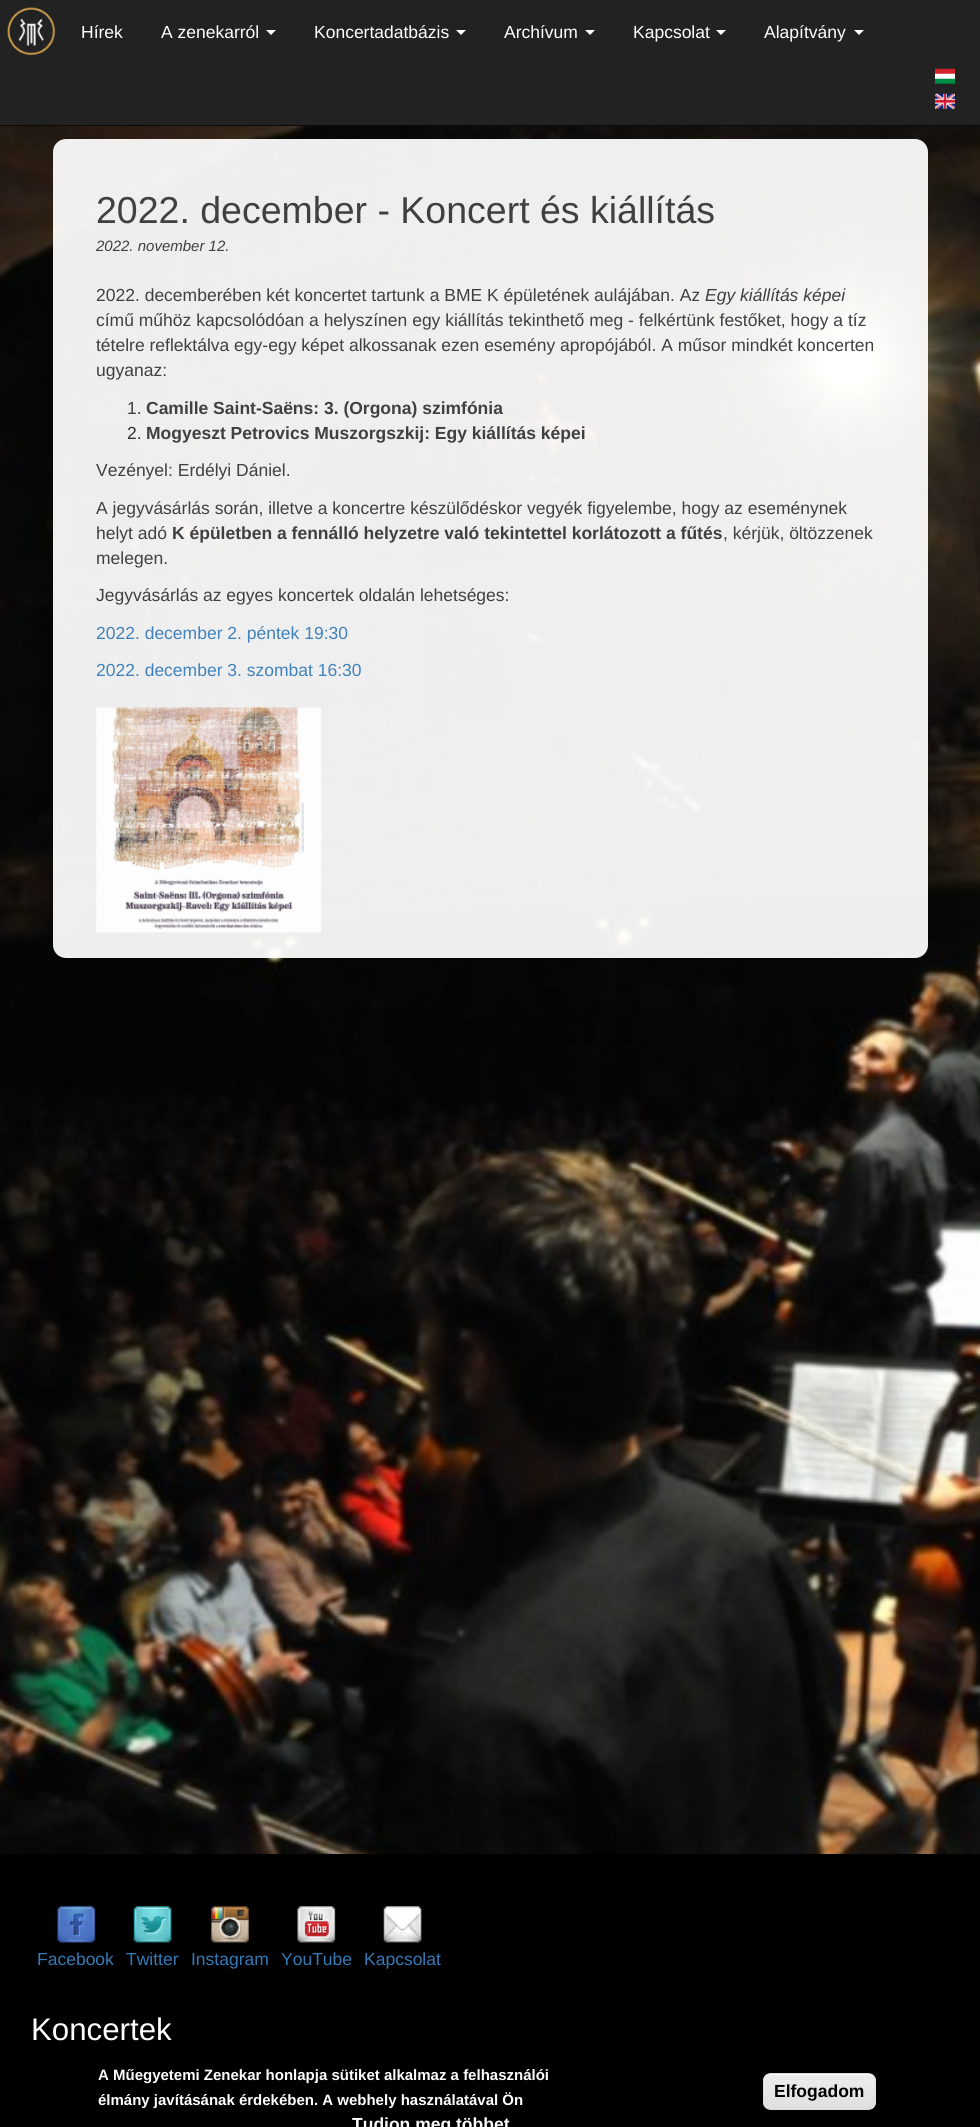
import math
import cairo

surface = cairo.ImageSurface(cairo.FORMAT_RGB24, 980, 2127)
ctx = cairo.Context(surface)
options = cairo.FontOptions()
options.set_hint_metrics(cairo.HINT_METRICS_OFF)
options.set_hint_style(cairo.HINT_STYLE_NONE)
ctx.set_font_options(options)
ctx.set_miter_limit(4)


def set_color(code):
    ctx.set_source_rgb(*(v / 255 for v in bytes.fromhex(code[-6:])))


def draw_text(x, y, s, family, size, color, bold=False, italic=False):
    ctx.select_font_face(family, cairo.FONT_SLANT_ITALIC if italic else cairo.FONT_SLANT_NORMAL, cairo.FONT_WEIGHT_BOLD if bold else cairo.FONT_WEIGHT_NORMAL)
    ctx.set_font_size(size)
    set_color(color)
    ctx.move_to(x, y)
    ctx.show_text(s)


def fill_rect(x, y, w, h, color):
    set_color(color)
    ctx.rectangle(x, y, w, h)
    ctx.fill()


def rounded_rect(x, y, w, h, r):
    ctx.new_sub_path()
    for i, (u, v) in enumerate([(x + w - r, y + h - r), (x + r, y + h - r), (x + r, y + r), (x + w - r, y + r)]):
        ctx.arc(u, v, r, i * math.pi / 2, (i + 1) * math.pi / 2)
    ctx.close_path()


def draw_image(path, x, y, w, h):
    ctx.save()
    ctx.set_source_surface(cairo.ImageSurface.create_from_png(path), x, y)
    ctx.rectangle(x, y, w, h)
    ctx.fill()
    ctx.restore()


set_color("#ffffff")
ctx.paint()
draw_image("assets/img1.png", 0, 126, 980, 1728)
fill_rect(0, 0, 980, 125, "#222222")
fill_rect(0, 125, 980, 1, "#090909")
draw_image("assets/img2.png", 7, 7, 48, 48)
draw_text(81, 38, "Hírek", "Liberation Sans", 17.5, "#ffffff")
draw_text(161, 38, "A zenekarról", "Liberation Sans", 17.5, "#ffffff")
ctx.new_path()
ctx.move_to(266, 30)
ctx.line_to(276, 30)
ctx.line_to(271, 35)
ctx.close_path()
ctx.fill()
draw_text(314, 38, "Koncertadatbázis", "Liberation Sans", 17.5, "#ffffff")
ctx.new_path()
ctx.move_to(456, 30)
ctx.line_to(466, 30)
ctx.line_to(461, 35)
ctx.close_path()
ctx.fill()
draw_text(504, 38, "Archívum", "Liberation Sans", 17.5, "#ffffff")
ctx.new_path()
ctx.move_to(585, 30)
ctx.line_to(595, 30)
ctx.line_to(590, 35)
ctx.close_path()
ctx.fill()
draw_text(633, 38, "Kapcsolat", "Liberation Sans", 17.5, "#ffffff")
ctx.new_path()
ctx.move_to(716, 30)
ctx.line_to(726, 30)
ctx.line_to(721, 35)
ctx.close_path()
ctx.fill()
draw_text(764, 38, "Alapítvány", "Liberation Sans", 17.5, "#ffffff")
ctx.new_path()
ctx.move_to(854, 30)
ctx.line_to(864, 30)
ctx.line_to(859, 35)
ctx.close_path()
ctx.fill()
draw_image("assets/img3.png", 935, 68, 20, 16)
draw_image("assets/img4.png", 935, 93, 20, 16)
ctx.set_source_rgba(1, 1, 1, 0.93)
rounded_rect(53, 139, 875, 819, 13)
ctx.fill()
draw_text(96, 223, "2022. december - Koncert és kiállítás", "Liberation Sans", 37.5, "#404040")
draw_text(96, 251, "2022. november 12.", "Liberation Sans", 15, "#404040", italic=True)
draw_text(96, 301, "2022. decemberében két koncertet tartunk a BME K épületének aulájában. Az", "Liberation Sans", 17.5, "#404040")
draw_text(705, 301, "Egy kiállítás képei", "Liberation Sans", 17.5, "#404040", italic=True)
draw_text(96, 326, "című műhöz kapcsolódóan a helyszínen egy kiállítás tekinthető meg - felkértünk festőket, hogy a tíz", "Liberation Sans", 17.5, "#404040")
draw_text(96, 351, "tételre reflektálva egy-egy képet alkossanak ezen esemény apropójából. A műsor mindkét koncerten", "Liberation Sans", 17.5, "#404040")
draw_text(96, 376, "ugyanaz:", "Liberation Sans", 17.5, "#404040")
draw_text(127, 414, "1.", "Liberation Sans", 17.5, "#404040")
draw_text(146, 414, "Camille Saint-Saëns: 3. (Orgona) szimfónia", "Liberation Sans", 17.5, "#404040", bold=True)
draw_text(127, 439, "2.", "Liberation Sans", 17.5, "#303030")
draw_text(146, 439, "Mogyeszt Petrovics Muszorgszkij: Egy kiállítás képei", "Liberation Sans", 17.5, "#404040", bold=True)
draw_text(96, 476, "Vezényel: Erdélyi Dániel.", "Liberation Sans", 17.5, "#404040")
draw_text(96, 514, "A jegyvásárlás során, illetve a koncertre készülődéskor vegyék figyelembe, hogy az eseménynek", "Liberation Sans", 17.5, "#404040")
draw_text(96, 539, "helyt adó", "Liberation Sans", 17.5, "#404040")
draw_text(172, 539, "K épületben a fennálló helyzetre való tekintettel korlátozott a fűtés", "Liberation Sans", 17.5, "#404040", bold=True)
draw_text(723, 539, ", kérjük, öltözzenek", "Liberation Sans", 17.5, "#404040")
draw_text(96, 564, "melegen.", "Liberation Sans", 17.5, "#404040")
draw_text(96, 601, "Jegyvásárlás az egyes koncertek oldalán lehetséges:", "Liberation Sans", 17.5, "#404040")
draw_text(96, 639, "2022. december 2. péntek 19:30", "Liberation Sans", 17.5, "#4082bb")
draw_text(96, 676, "2022. december 3. szombat 16:30", "Liberation Sans", 17.5, "#4082bb")
draw_image("assets/img5.png", 96, 707, 226, 226)
fill_rect(0, 1854, 980, 273, "#000000")
draw_image("assets/img6.png", 57, 1906, 39, 37)
draw_text(37, 1965, "Facebook", "Liberation Sans", 17.5, "#337ab7")
draw_image("assets/img7.png", 133, 1906, 39, 37)
draw_text(126, 1965, "Twitter", "Liberation Sans", 17.5, "#337ab7")
draw_image("assets/img8.png", 211, 1906, 38, 37)
draw_text(191, 1965, "Instagram", "Liberation Sans", 17.5, "#337ab7")
draw_image("assets/img9.png", 297, 1906, 39, 37)
draw_text(281, 1965, "YouTube", "Liberation Sans", 17.5, "#337ab7")
draw_image("assets/img10.png", 383, 1906, 39, 37)
draw_text(364, 1965, "Kapcsolat", "Liberation Sans", 17.5, "#337ab7")
draw_text(31, 2040, "Koncertek", "Liberation Sans", 31.25, "#ffffff")
draw_text(98, 2080, "A Műegyetemi Zenekar honlapja sütiket alkalmaz a felhasználói", "Liberation Sans", 15, "#ffffff", bold=True)
draw_text(98, 2105, "élmány javításának érdekében. A webhely használatával Ön", "Liberation Sans", 15, "#ffffff", bold=True)
draw_text(352, 2130, "Tudjon meg többet", "Liberation Sans", 17.5, "#ffffff", bold=True)
ctx.save()
rounded_rect(763, 2073, 113, 37, 8)
ctx.clip()
gradient = cairo.LinearGradient(819, 2074, 819, 2109)
gradient.add_color_stop_rgba(0.05, 0.929, 0.929, 0.929, 1)
gradient.add_color_stop_rgba(1, 0.875, 0.875, 0.875, 1)
ctx.set_source(gradient)
ctx.rectangle(763, 2074, 113, 35)
ctx.fill()
ctx.restore()
ctx.new_path()
ctx.move_to(770, 2075)
ctx.line_to(869, 2075)
ctx.curve_to(872, 2075, 875, 2078, 875, 2081)
ctx.curve_to(875, 2070, 859, 2074, 852, 2074)
ctx.line_to(786, 2074)
ctx.curve_to(780, 2074, 764, 2070, 764, 2081)
ctx.curve_to(764, 2078, 767, 2075, 770, 2075)
ctx.close_path()
ctx.fill()
rounded_rect(763.5, 2073.5, 112, 36, 7.5)
set_color("#dcdcdc")
ctx.set_line_width(1)
ctx.stroke()
draw_text(774, 2097, "Elfogadom", "Liberation Sans", 17.5, "#000000", bold=True)
surface.write_to_png("output.png")
